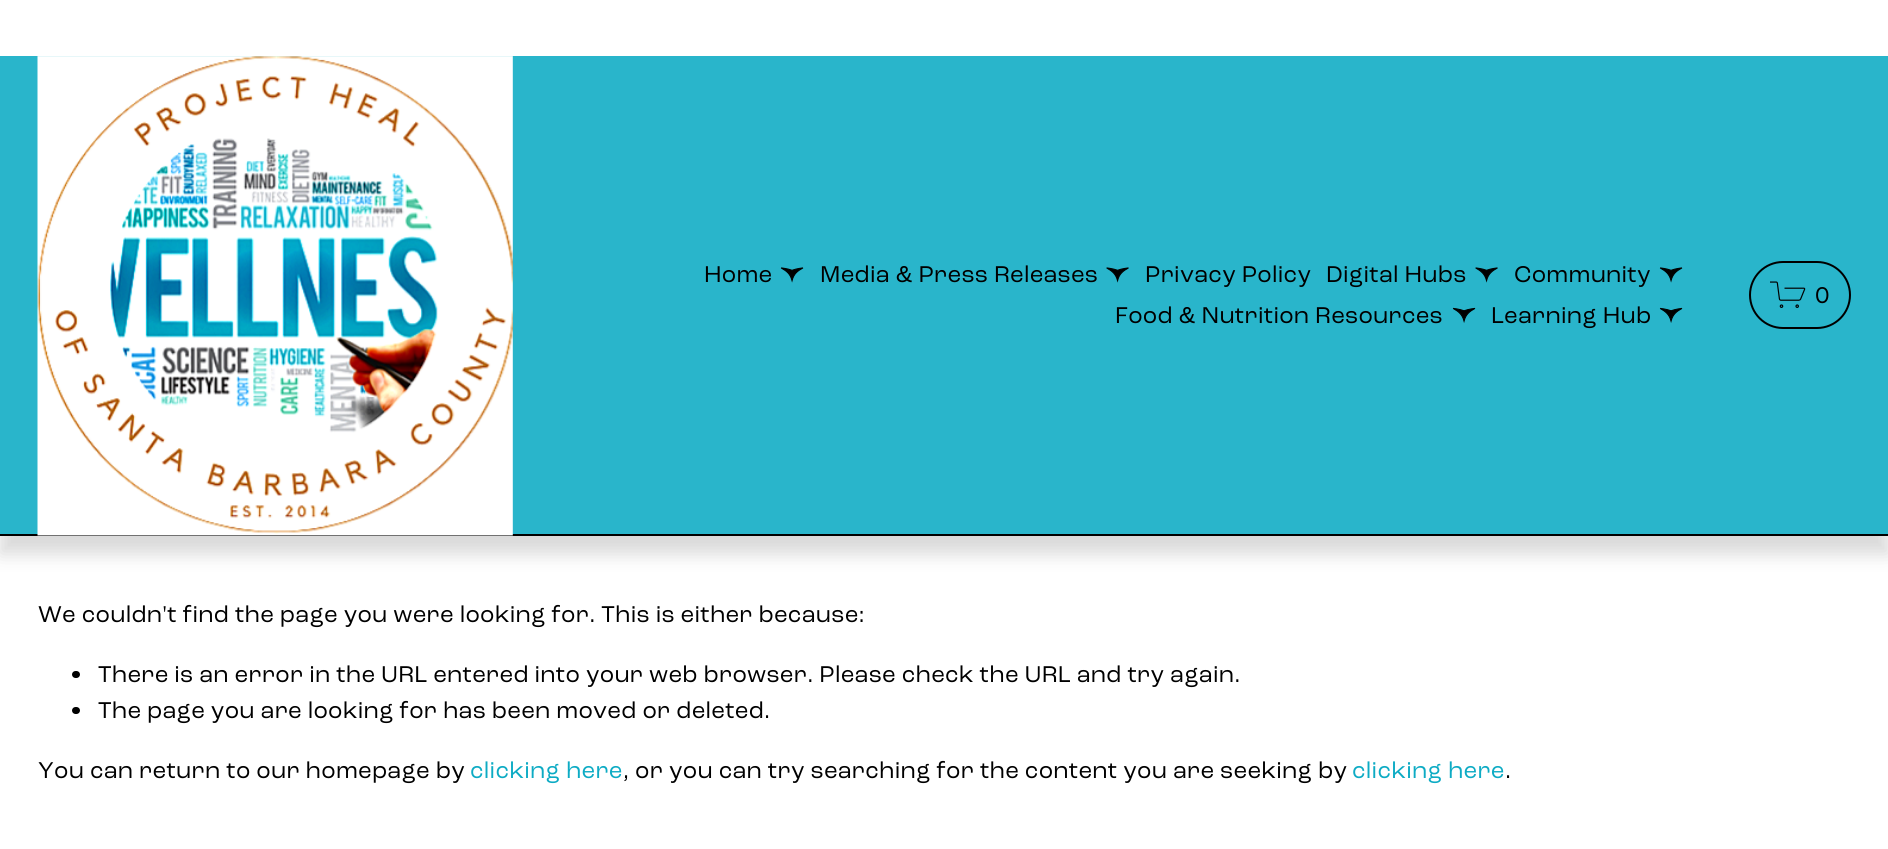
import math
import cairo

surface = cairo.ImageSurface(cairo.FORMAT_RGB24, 1888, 849)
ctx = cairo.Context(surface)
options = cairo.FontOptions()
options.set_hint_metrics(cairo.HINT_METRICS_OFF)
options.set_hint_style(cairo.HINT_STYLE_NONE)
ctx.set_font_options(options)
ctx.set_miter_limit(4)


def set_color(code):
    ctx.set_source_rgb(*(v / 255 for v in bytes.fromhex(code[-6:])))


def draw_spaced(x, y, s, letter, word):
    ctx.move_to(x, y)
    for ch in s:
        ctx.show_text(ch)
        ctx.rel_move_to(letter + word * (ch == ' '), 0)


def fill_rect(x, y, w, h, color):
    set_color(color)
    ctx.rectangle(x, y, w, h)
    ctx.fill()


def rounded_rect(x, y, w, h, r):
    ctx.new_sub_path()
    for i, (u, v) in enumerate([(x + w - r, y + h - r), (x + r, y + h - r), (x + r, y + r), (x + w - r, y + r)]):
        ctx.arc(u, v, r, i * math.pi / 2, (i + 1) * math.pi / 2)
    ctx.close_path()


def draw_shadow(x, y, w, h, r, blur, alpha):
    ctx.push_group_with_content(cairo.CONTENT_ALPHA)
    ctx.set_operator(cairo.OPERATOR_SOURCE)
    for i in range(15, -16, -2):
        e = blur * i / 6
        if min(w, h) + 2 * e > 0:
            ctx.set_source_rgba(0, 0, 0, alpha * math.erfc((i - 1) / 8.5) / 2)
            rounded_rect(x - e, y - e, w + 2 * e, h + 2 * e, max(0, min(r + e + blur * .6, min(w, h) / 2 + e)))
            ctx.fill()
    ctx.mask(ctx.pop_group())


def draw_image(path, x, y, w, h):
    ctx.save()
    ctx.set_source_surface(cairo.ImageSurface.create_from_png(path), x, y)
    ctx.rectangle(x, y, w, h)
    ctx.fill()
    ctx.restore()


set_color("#ffffff")
ctx.paint()
ctx.save()
ctx.rectangle(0, 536, 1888, 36)
ctx.clip()
set_color("#d9d9d9")
draw_shadow(0, 74, 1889, 480, 0, 9, 1)
ctx.restore()
ctx.set_source_rgba(0.051, 0.671, 0.769, 0.88)
ctx.rectangle(0, 56, 1888, 478)
ctx.fill()
fill_rect(0, 534, 1888, 2, "#000000")
draw_image("assets/img1.png", 37, 56, 476, 480)
ctx.select_font_face("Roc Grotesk")
ctx.set_font_size(24)
draw_spaced(704, 282, "Home", 0.25, 0)
draw_image("assets/img2.png", 780, 267, 24, 16)
draw_spaced(820, 282, "Media & Press Releases", 0.25, 0)
draw_image("assets/img3.png", 1106, 267, 23, 16)
draw_spaced(1145, 282, "Privacy Policy", 0.25, 0)
draw_spaced(1326, 282, "Digital Hubs", 0.25, 0)
draw_image("assets/img3.png", 1475, 267, 23, 16)
draw_spaced(1514, 282, "Community", 0.25, 0)
draw_image("assets/img2.png", 1659, 267, 24, 16)
draw_spaced(1115, 323, "Food & Nutrition Resources", 0.25, 0)
draw_image("assets/img4.png", 1452, 307, 24, 16)
draw_spaced(1491, 323, "Learning Hub", 0.25, 0)
draw_image("assets/img4.png", 1659, 307, 24, 16)
rounded_rect(1750, 262, 100, 66, 33)
ctx.stroke()
draw_image("assets/img5.png", 1770, 281, 36, 27)
draw_spaced(1815, 303, "0", 0.25, 0)
draw_spaced(38, 622, "We couldn't find the page you were looking for. This is either because:", 0.25, 0)
rounded_rect(72, 671, 8, 7, 3.5)
ctx.fill()
draw_spaced(98, 682, "There is an error in the URL entered into your web browser. Please check the URL and try again.", 0.25, 0)
rounded_rect(72, 707, 8, 7, 3.5)
ctx.fill()
draw_spaced(98, 718, "The page you are looking for has been moved or deleted.", 0.25, 0)
draw_spaced(38, 778, "You can return to our homepage by", 0.25, 0)
set_color("#0dabc4")
draw_spaced(470, 778, "clicking here", 0.25, 0)
set_color("#000000")
draw_spaced(623, 778, ", or you can try searching for the content you are seeking by", 0.25, 0)
set_color("#0dabc4")
draw_spaced(1352, 778, "clicking here", 0.25, 0)
set_color("#000000")
draw_spaced(1505, 778, ".", 0.25, 0)
surface.write_to_png("output.png")
